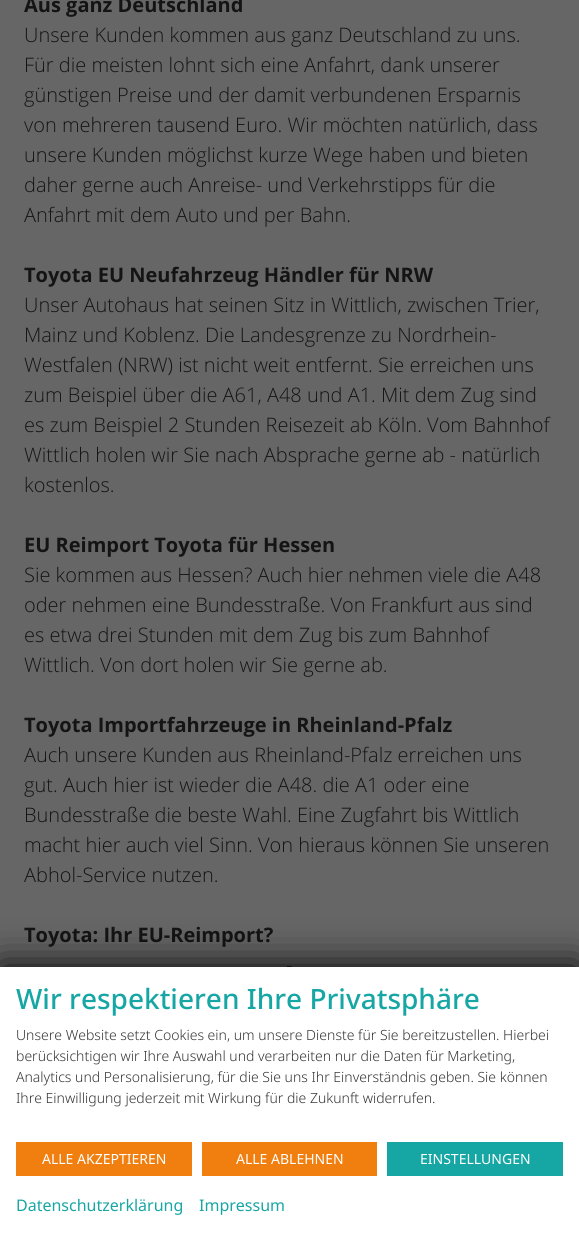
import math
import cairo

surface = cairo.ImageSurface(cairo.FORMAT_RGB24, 579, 1235)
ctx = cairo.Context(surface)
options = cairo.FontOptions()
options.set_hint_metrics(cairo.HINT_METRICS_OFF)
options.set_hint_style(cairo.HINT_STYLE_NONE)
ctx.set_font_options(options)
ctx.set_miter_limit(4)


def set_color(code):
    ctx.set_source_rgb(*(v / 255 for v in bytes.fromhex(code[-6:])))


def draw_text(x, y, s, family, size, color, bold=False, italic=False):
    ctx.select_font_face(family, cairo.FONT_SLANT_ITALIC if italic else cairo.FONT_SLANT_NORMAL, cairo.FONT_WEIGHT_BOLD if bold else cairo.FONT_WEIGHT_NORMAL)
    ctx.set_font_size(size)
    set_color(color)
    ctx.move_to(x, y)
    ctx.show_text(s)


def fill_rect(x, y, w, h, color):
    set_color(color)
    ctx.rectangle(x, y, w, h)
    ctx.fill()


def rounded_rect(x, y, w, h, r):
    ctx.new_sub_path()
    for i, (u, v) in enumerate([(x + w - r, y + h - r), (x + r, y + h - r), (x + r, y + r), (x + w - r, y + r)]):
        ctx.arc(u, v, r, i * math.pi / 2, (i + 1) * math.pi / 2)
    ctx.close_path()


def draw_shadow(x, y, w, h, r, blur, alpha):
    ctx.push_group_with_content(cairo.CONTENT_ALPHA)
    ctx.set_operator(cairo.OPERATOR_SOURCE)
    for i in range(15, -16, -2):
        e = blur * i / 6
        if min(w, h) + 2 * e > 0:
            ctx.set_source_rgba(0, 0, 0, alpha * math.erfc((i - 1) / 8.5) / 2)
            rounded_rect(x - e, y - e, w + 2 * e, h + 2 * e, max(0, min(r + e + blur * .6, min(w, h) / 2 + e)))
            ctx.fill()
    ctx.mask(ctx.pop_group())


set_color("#666666")
ctx.paint()
draw_text(24, 12, "Aus ganz Deutschland", "Open Sans", 20, "#141414", bold=True)
draw_text(24, 42, "Unsere Kunden kommen aus ganz Deutschland zu uns.", "Open Sans Light", 20, "#141414")
draw_text(24, 72, "Für die meisten lohnt sich eine Anfahrt, dank unserer", "Open Sans Light", 20, "#141414")
draw_text(24, 102, "günstigen Preise und der damit verbundenen Ersparnis", "Open Sans Light", 20, "#141414")
draw_text(24, 132, "von mehreren tausend Euro. Wir möchten natürlich, dass", "Open Sans Light", 20, "#141414")
draw_text(24, 162, "unsere Kunden möglichst kurze Wege haben und bieten", "Open Sans Light", 20, "#141414")
draw_text(24, 192, "daher gerne auch Anreise- und Verkehrstipps für die", "Open Sans Light", 20, "#141414")
draw_text(24, 222, "Anfahrt mit dem Auto und per Bahn.", "Open Sans Light", 20, "#141414")
draw_text(24, 282, "Toyota EU Neufahrzeug Händler für NRW", "Open Sans", 20, "#141414", bold=True)
draw_text(24, 312, "Unser Autohaus hat seinen Sitz in Wittlich, zwischen Trier,", "Open Sans Light", 20, "#141414")
draw_text(24, 342, "Mainz und Koblenz. Die Landesgrenze zu Nordrhein-", "Open Sans Light", 20, "#141414")
draw_text(24, 372, "Westfalen (NRW) ist nicht weit entfernt. Sie erreichen uns", "Open Sans Light", 20, "#141414")
draw_text(24, 402, "zum Beispiel über die A61, A48 und A1. Mit dem Zug sind", "Open Sans Light", 20, "#141414")
draw_text(24, 432, "es zum Beispiel 2 Stunden Reisezeit ab Köln. Vom Bahnhof", "Open Sans Light", 20, "#141414")
draw_text(24, 462, "Wittlich holen wir Sie nach Absprache gerne ab - natürlich", "Open Sans Light", 20, "#141414")
draw_text(24, 492, "kostenlos.", "Open Sans Light", 20, "#141414")
draw_text(24, 552, "EU Reimport Toyota für Hessen", "Open Sans", 20, "#141414", bold=True)
draw_text(24, 582, "Sie kommen aus Hessen? Auch hier nehmen viele die A48", "Open Sans Light", 20, "#141414")
draw_text(24, 612, "oder nehmen eine Bundesstraße. Von Frankfurt aus sind", "Open Sans Light", 20, "#141414")
draw_text(24, 642, "es etwa drei Stunden mit dem Zug bis zum Bahnhof", "Open Sans Light", 20, "#141414")
draw_text(24, 672, "Wittlich. Von dort holen wir Sie gerne ab.", "Open Sans Light", 20, "#141414")
draw_text(24, 732, "Toyota Importfahrzeuge in Rheinland-Pfalz", "Open Sans", 20, "#141414", bold=True)
draw_text(24, 762, "Auch unsere Kunden aus Rheinland-Pfalz erreichen uns", "Open Sans Light", 20, "#141414")
draw_text(24, 792, "gut. Auch hier ist wieder die A48. die A1 oder eine", "Open Sans Light", 20, "#141414")
draw_text(24, 822, "Bundesstraße die beste Wahl. Eine Zugfahrt bis Wittlich", "Open Sans Light", 20, "#141414")
draw_text(24, 852, "macht hier auch viel Sinn. Von hieraus können Sie unseren", "Open Sans Light", 20, "#141414")
draw_text(24, 882, "Abhol-Service nutzen.", "Open Sans Light", 20, "#141414")
draw_text(24, 942, "Toyota: Ihr EU-Reimport?", "Open Sans", 20, "#141414", bold=True)
draw_text(286, 972, "-", "Open Sans Light", 20, "#141414")
set_color("#000000")
draw_shadow(0, 967, 579, 268, 0, 20, 1)
fill_rect(0, 967, 579, 268, "#ffffff")
draw_text(16, 1009, "Wir respektieren Ihre Privatsphäre", "Noto Sans Medium", 28, "#16a6a4")
draw_text(16, 1040, "Unsere Website setzt Cookies ein, um unsere Dienste für Sie bereitzustellen. Hierbei", "Noto Sans Light", 14, "#333333")
draw_text(16, 1061, "berücksichtigen wir Ihre Auswahl und verarbeiten nur die Daten für Marketing,", "Noto Sans Light", 14, "#333333")
draw_text(16, 1082, "Analytics und Personalisierung, für die Sie uns Ihr Einverständnis geben. Sie können", "Noto Sans Light", 14, "#333333")
draw_text(16, 1103, "Ihre Einwilligung jederzeit mit Wirkung für die Zukunft widerrufen.", "Noto Sans Light", 14, "#333333")
fill_rect(16, 1142, 176, 34, "#f07f10")
draw_text(42, 1164, "ALLE AKZEPTIEREN", "Noto Sans", 14, "#ffffff")
fill_rect(202, 1142, 175, 34, "#f07f10")
draw_text(236, 1164, "ALLE ABLEHNEN", "Noto Sans", 14, "#ffffff")
fill_rect(387, 1142, 176, 34, "#16a6a4")
draw_text(420, 1164, "EINSTELLUNGEN", "Noto Sans", 14, "#ffffff")
draw_text(16, 1211, "Datenschutzerklärung", "Noto Sans", 16, "#16a6a4")
draw_text(199, 1211, "Impressum", "Noto Sans", 16, "#16a6a4")
surface.write_to_png("output.png")
